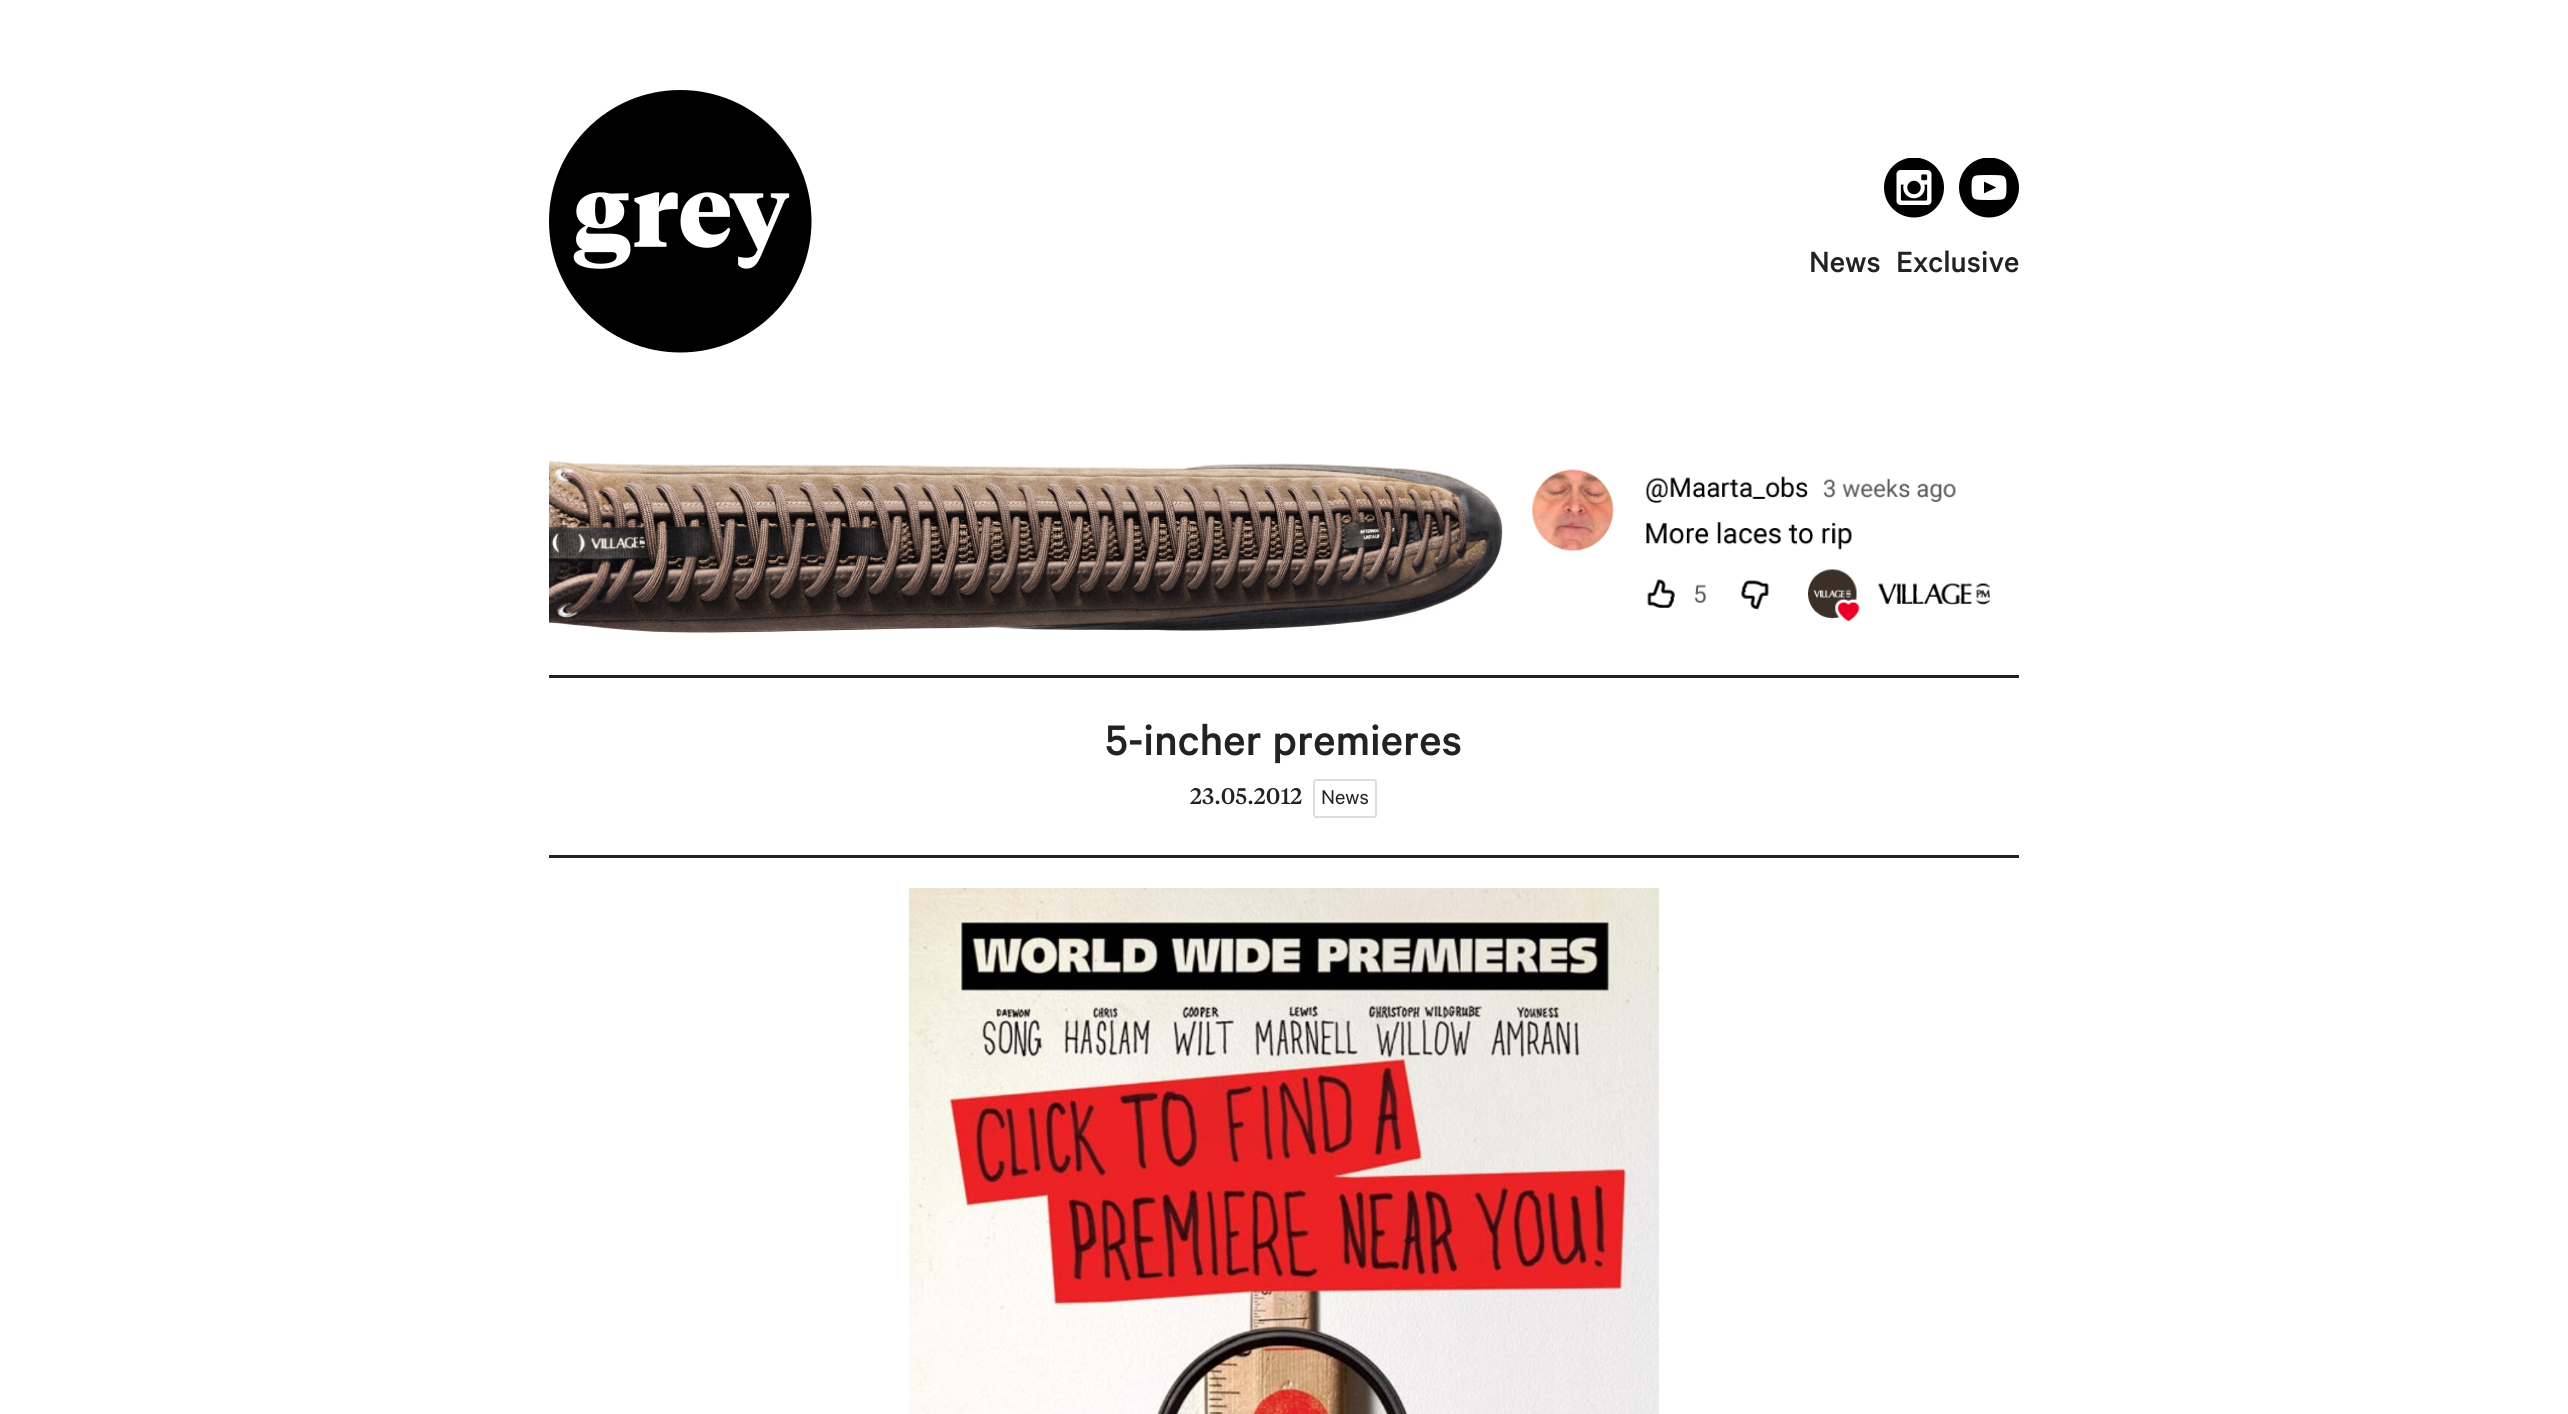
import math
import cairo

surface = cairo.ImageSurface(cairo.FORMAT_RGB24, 2568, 1414)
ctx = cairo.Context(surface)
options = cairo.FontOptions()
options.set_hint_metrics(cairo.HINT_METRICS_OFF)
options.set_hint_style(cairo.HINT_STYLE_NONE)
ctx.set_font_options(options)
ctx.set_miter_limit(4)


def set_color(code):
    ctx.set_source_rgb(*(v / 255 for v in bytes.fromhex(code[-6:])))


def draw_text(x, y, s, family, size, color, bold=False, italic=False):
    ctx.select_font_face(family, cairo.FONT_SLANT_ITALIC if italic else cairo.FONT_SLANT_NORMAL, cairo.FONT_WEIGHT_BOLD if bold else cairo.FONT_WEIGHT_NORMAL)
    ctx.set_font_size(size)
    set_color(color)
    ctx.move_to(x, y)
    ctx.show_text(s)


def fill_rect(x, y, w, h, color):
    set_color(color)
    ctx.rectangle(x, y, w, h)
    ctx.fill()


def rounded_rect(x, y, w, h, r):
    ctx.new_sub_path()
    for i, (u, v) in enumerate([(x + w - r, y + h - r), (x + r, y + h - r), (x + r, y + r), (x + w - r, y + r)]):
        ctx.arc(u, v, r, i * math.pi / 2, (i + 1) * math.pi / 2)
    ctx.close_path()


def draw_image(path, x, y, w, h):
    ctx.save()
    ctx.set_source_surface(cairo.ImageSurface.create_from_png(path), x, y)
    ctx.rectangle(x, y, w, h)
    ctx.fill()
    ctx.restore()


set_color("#ffffff")
ctx.paint()
draw_image("assets/img1.png", 549, 90, 263, 263)
draw_image("assets/img2.png", 1884, 158, 60, 60)
draw_image("assets/img3.png", 1959, 158, 60, 60)
draw_text(1809, 272, "News", "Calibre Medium", 33, "#222222")
draw_text(1896, 272, "Exclusive", "Calibre Medium", 33, "#222222")
draw_image("assets/img4.png", 549, 460, 1441, 173)
fill_rect(549, 675, 1470, 3, "#222222")
fill_rect(549, 855, 1470, 3, "#222222")
draw_text(1105, 755, "5-incher premieres", "Calibre Medium", 48, "#222222")
draw_text(1190, 804, "23.05.2012", "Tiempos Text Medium", 22.5, "#222222")
rounded_rect(1314, 780, 62, 37, 2)
set_color("#dddddd")
ctx.stroke()
draw_text(1321, 804, "News", "Calibre", 22.5, "#222222")
draw_image("assets/img5.png", 909, 888, 750, 526)
surface.write_to_png("output.png")
